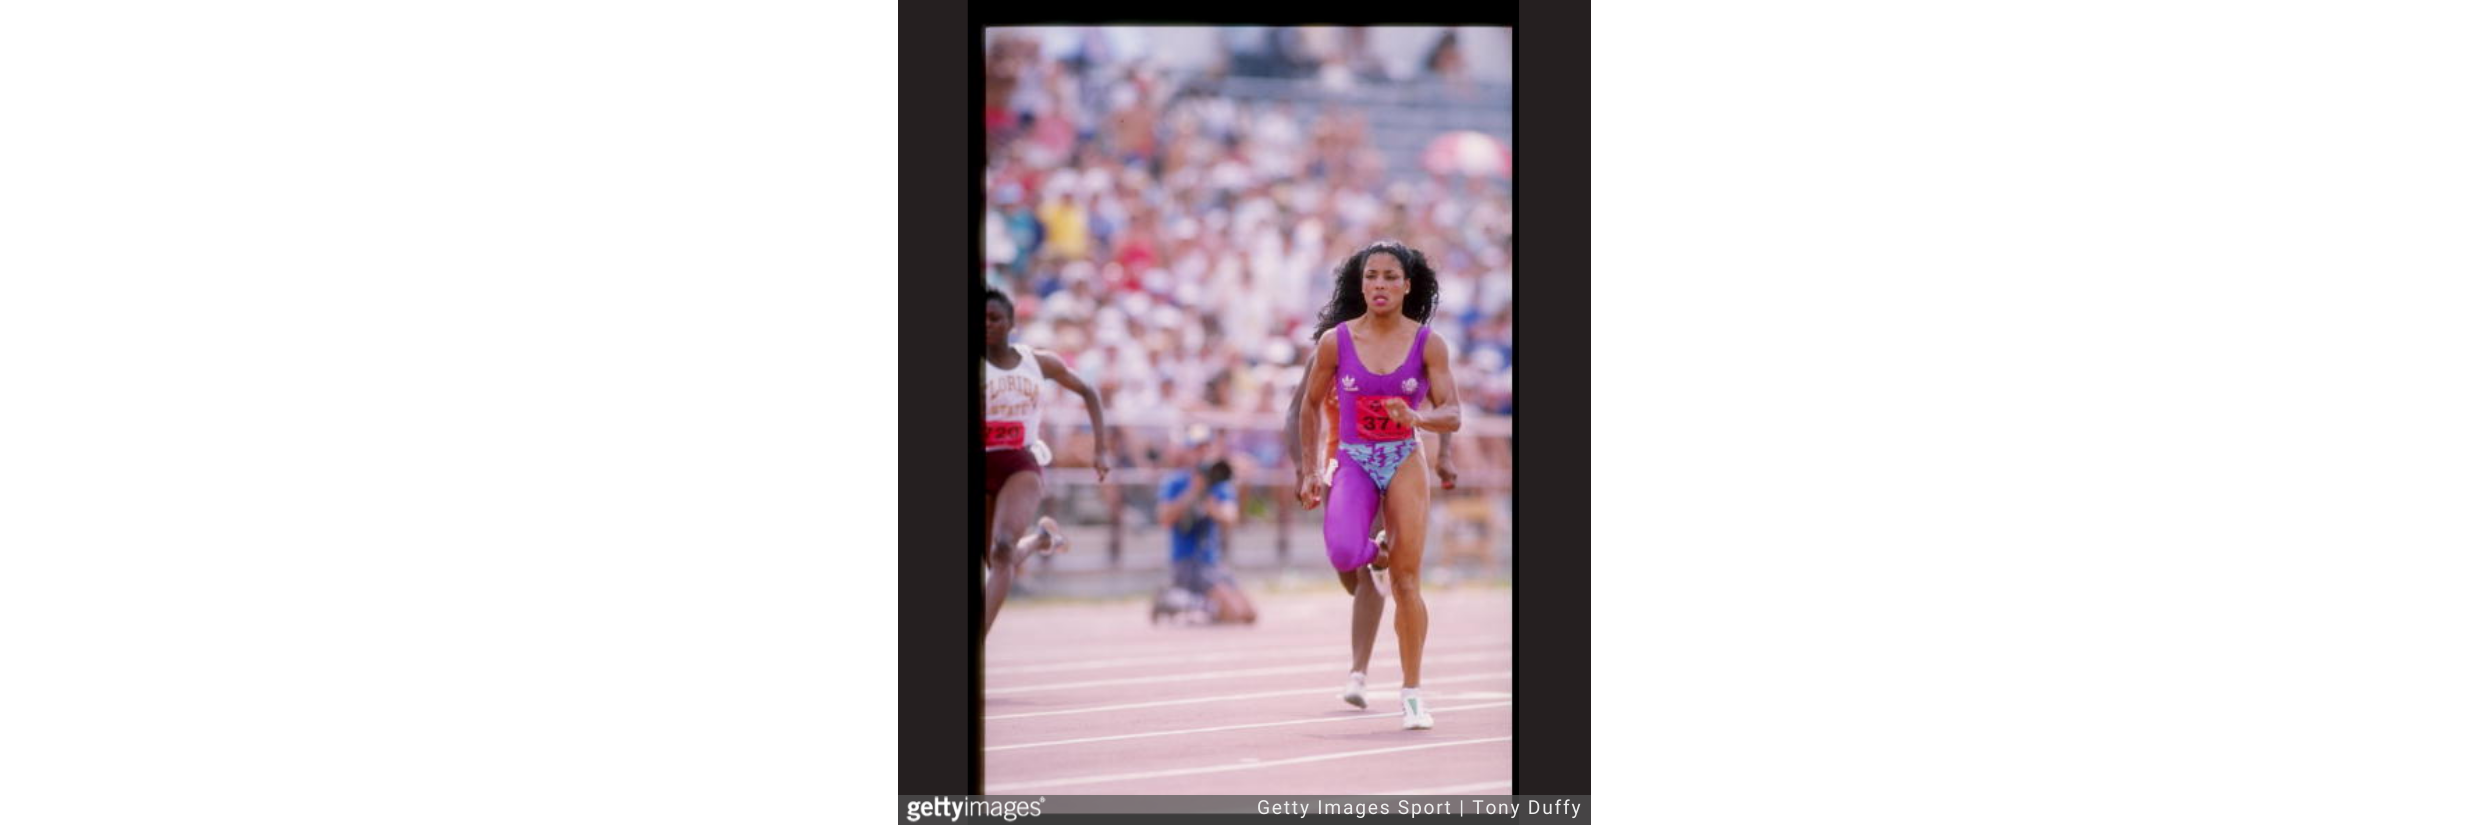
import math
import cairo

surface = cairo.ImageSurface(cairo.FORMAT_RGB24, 2486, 825)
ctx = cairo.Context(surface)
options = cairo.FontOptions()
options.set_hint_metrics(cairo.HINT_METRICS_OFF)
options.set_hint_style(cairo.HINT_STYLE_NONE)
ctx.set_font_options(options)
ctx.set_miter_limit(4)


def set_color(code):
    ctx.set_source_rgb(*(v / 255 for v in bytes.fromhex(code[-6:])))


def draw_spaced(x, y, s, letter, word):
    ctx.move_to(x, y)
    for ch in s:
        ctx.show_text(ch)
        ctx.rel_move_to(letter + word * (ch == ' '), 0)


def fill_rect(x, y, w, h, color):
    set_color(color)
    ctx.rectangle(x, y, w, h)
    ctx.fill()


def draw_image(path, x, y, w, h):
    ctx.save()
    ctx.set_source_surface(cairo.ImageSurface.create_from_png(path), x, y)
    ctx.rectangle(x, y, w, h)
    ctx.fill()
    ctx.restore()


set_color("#ffffff")
ctx.paint()
fill_rect(898, 0, 693, 825, "#251f20")
draw_image("assets/img1.png", 967, 0, 552, 825)
ctx.set_source_rgba(0.333, 0.333, 0.333, 0.7)
ctx.rectangle(898, 795, 693, 30)
ctx.fill()
draw_image("assets/img2.png", 906, 796, 140, 27)
ctx.select_font_face("Roboto")
ctx.set_font_size(19.25)
set_color("#eeeeee")
draw_spaced(1257, 814, "Getty Images Sport | Tony Duffy", 1.75, 0)
surface.write_to_png("output.png")
